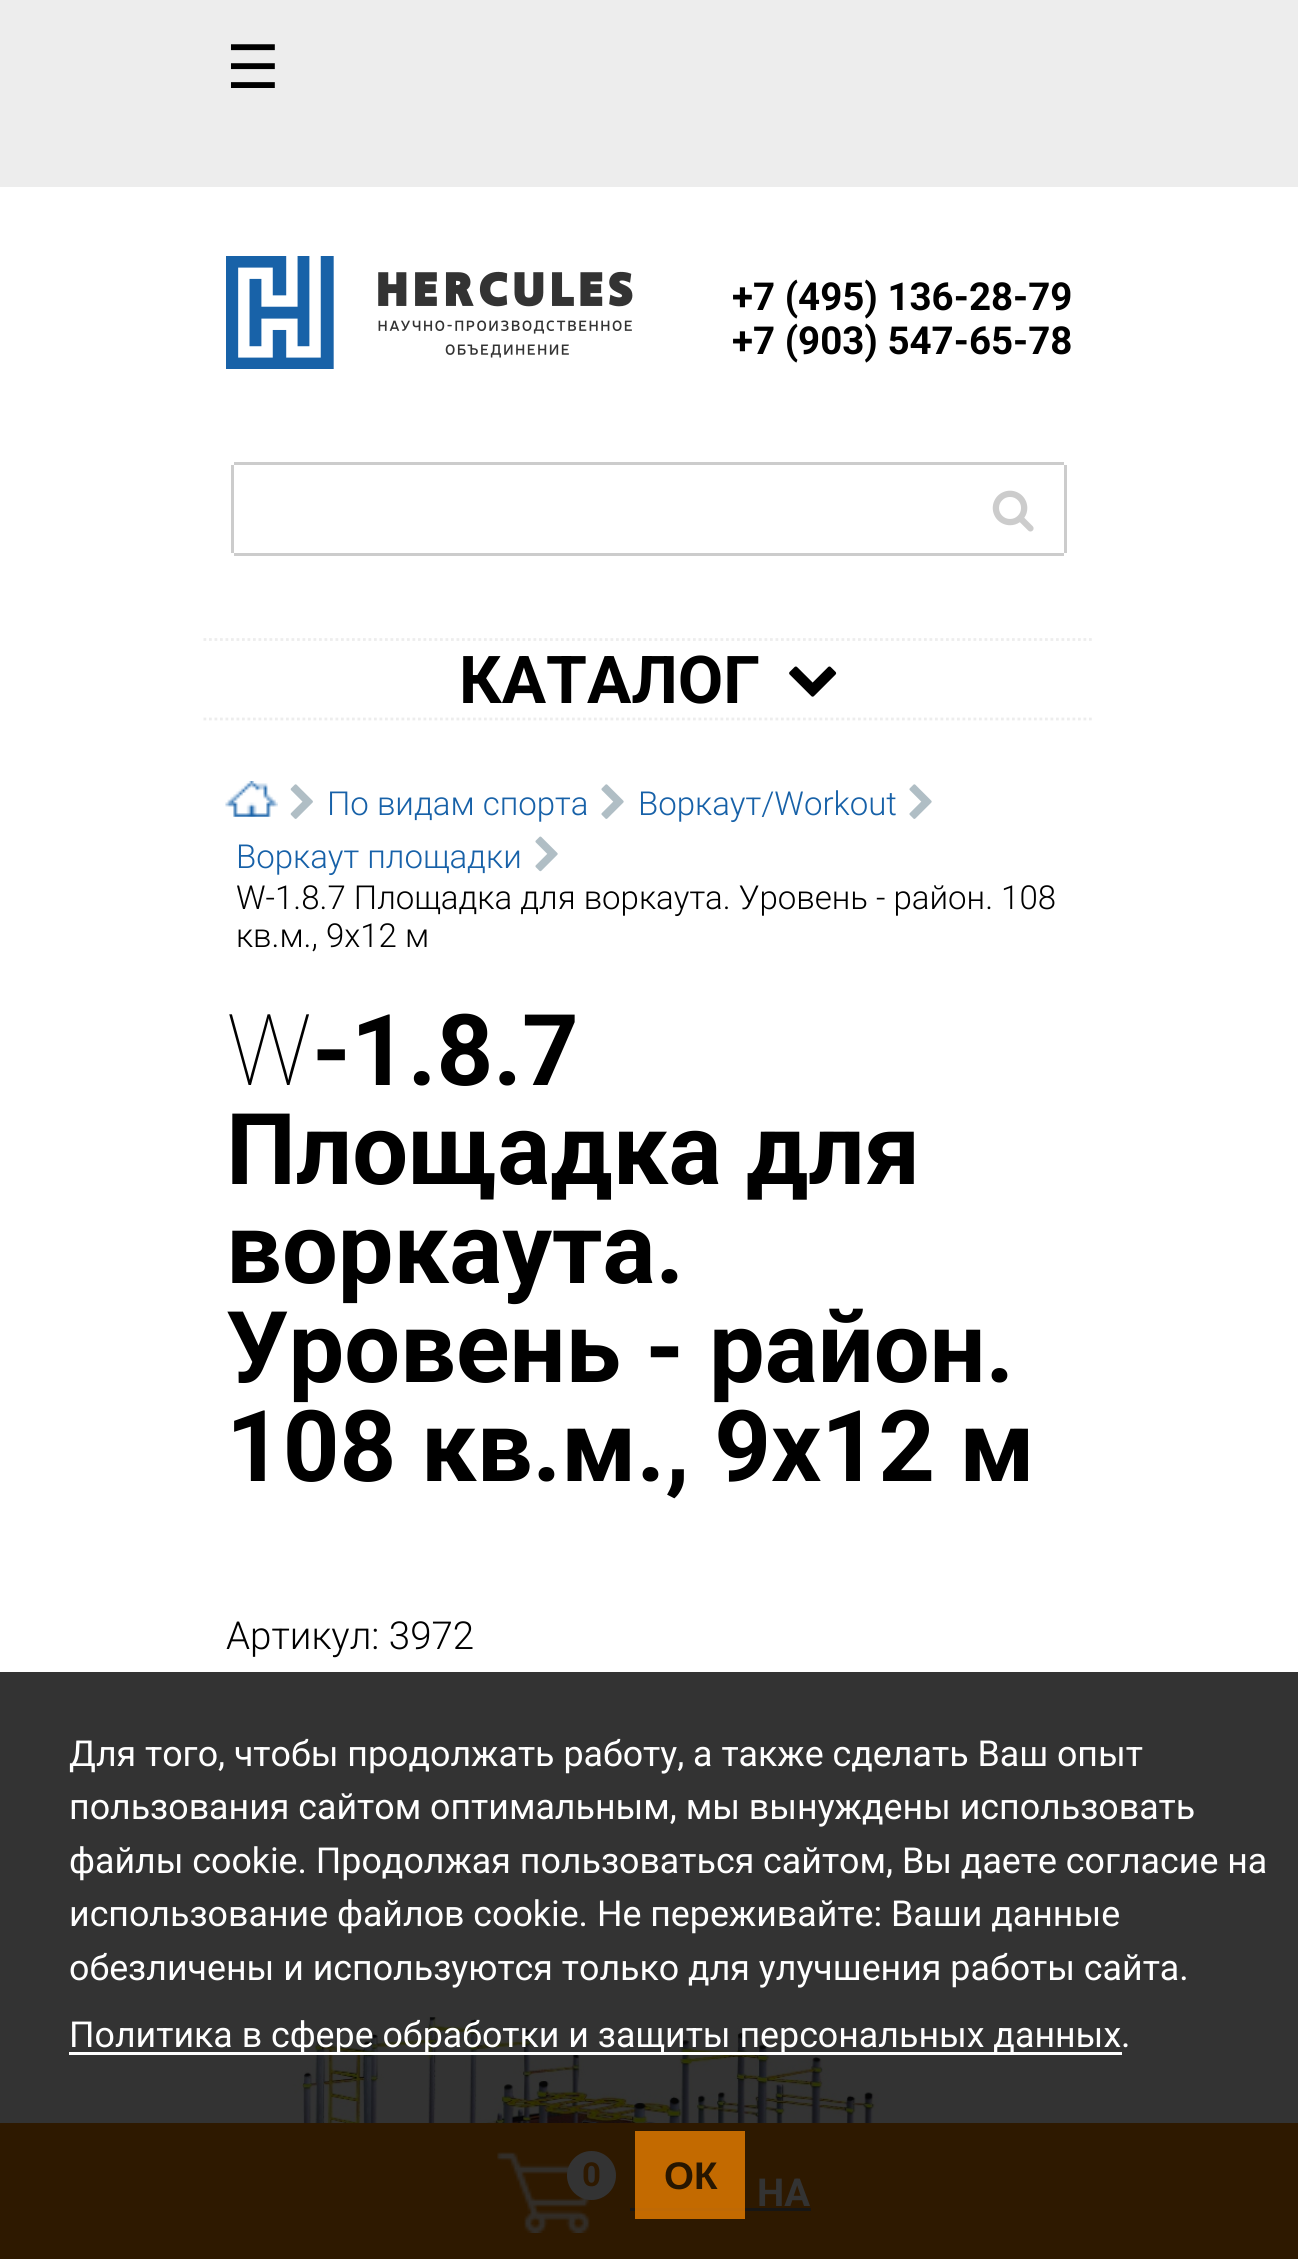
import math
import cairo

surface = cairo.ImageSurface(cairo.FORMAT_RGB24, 1298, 2259)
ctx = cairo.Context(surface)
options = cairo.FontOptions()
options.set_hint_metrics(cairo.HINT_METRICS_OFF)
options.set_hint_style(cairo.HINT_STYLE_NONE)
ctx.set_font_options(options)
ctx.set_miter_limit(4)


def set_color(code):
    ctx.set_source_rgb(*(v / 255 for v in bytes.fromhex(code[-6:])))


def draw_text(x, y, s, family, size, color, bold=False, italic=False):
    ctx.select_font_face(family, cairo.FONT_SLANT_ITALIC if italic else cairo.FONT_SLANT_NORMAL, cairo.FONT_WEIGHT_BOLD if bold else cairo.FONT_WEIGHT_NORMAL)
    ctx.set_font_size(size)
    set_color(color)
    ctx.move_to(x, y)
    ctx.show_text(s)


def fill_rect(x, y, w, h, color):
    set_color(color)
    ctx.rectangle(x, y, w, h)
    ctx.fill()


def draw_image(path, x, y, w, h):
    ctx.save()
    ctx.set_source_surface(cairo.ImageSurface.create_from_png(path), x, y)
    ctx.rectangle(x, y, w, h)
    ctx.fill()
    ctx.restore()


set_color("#ffffff")
ctx.paint()
fill_rect(0, 1672, 1298, 451, "#333333")
fill_rect(0, 0, 1298, 187, "#ededed")
draw_text(226, 88, "☰", "DejaVu Sans", 60, "#000000")
draw_image("assets/img1.png", 226, 256, 407, 113)
draw_text(732, 310, "+7 (495) 136-28-79", "Roboto", 38.5, "#000000", bold=True)
draw_text(732, 354, "+7 (903) 547-65-78", "Roboto", 38.5, "#000000", bold=True)
fill_rect(231, 465, 3, 88, "#cccccc")
fill_rect(234, 462, 830, 3, "#cccccc")
fill_rect(1064, 465, 3, 88, "#cccccc")
fill_rect(234, 553, 830, 3, "#cccccc")
draw_image("assets/img2.png", 992, 490, 42, 42)
fill_rect(0, 2123, 1298, 136, "#2e1900")
draw_image("assets/img3.png", 497, 2152, 93, 81)
set_color("#333333")
ctx.arc(591.5, 2175.5, 24.5, 0, 2 * math.pi)
ctx.fill()
draw_text(582, 2186, "0", "Roboto", 33, "#2e1900", bold=True)
draw_text(757, 2206, "НА", "Roboto", 38.5, "#333333", bold=True)
fill_rect(630, 2208, 181, 3, "#171615")
ctx.new_path()
ctx.move_to(203.5, 639.5)
ctx.line_to(1094.5, 639.5)
set_color("#ededed")
ctx.set_line_width(2.8)
ctx.set_dash([2.75, 2.75])
ctx.stroke()
ctx.new_path()
ctx.move_to(203.5, 719)
ctx.line_to(1094.5, 719)
ctx.stroke()
draw_text(459, 703, "КАТАЛОГ", "Roboto", 66, "#000000", bold=True)
draw_image("assets/img4.png", 789, 666, 48, 31)
draw_image("assets/img5.png", 225, 781, 53, 36)
draw_image("assets/img6.png", 290, 784, 23, 35)
draw_text(327, 815, "По видам спорта", "Roboto Light", 33, "#1761a8")
draw_image("assets/img7.png", 601, 784, 23, 35)
draw_text(638, 815, "Воркаут/Workout", "Roboto Light", 33, "#1761a8")
draw_image("assets/img7.png", 909, 784, 23, 35)
draw_text(236, 868, "Воркаут площадки", "Roboto Light", 33, "#1761a8")
draw_image("assets/img8.png", 535, 836, 23, 36)
draw_text(236, 909, "W-1.8.7 Площадка для воркаута. Уровень - район. 108", "Roboto Light", 33, "#000000")
draw_text(236, 947, "кв.м., 9х12 м", "Roboto Light", 33, "#000000")
draw_text(226, 1085, "W", "Noto Sans Thin", 99, "#000000")
draw_text(312, 1085, "-1.8.7", "Roboto", 99, "#000000", bold=True)
draw_text(226, 1184, "Площадка для", "Roboto", 99, "#000000", bold=True)
draw_text(226, 1283, "воркаута.", "Roboto", 99, "#000000", bold=True)
draw_text(226, 1382, "Уровень - район.", "Roboto", 99, "#000000", bold=True)
draw_text(226, 1481, "108 кв.м., 9х12 м", "Roboto", 99, "#000000", bold=True)
draw_text(226, 1649, "Артикул: 3972", "Roboto Light", 38.5, "#000000")
draw_image("assets/img9.png", 226, 2016, 839, 107)
draw_text(69, 1766, "Для того, чтобы продолжать работу, а также сделать Ваш опыт", "Roboto", 35.75, "#ffffff")
draw_text(69, 1819, "пользования сайтом оптимальным, мы вынуждены использовать", "Roboto", 35.75, "#ffffff")
draw_text(69, 1873, "файлы cookie. Продолжая пользоваться сайтом, Вы даете согласие на", "Roboto", 35.75, "#ffffff")
draw_text(69, 1926, "использование файлов cookie. Не переживайте: Ваши данные", "Roboto", 35.75, "#ffffff")
draw_text(69, 1980, "обезличены и используются только для улучшения работы сайта.", "Roboto", 35.75, "#ffffff")
fill_rect(69, 2052, 1053, 3, "#ffffff")
draw_text(69, 2047, "Политика в сфере обработки и защиты персональных данных.", "Roboto", 35.75, "#ffffff")
ctx.set_source_rgba(0.91, 0.498, 0, 0.8)
ctx.rectangle(635, 2131, 110, 88)
ctx.fill()
draw_text(664, 2189, "ОК", "Liberation Sans", 38.5, "#271600", bold=True)
surface.write_to_png("output.png")
